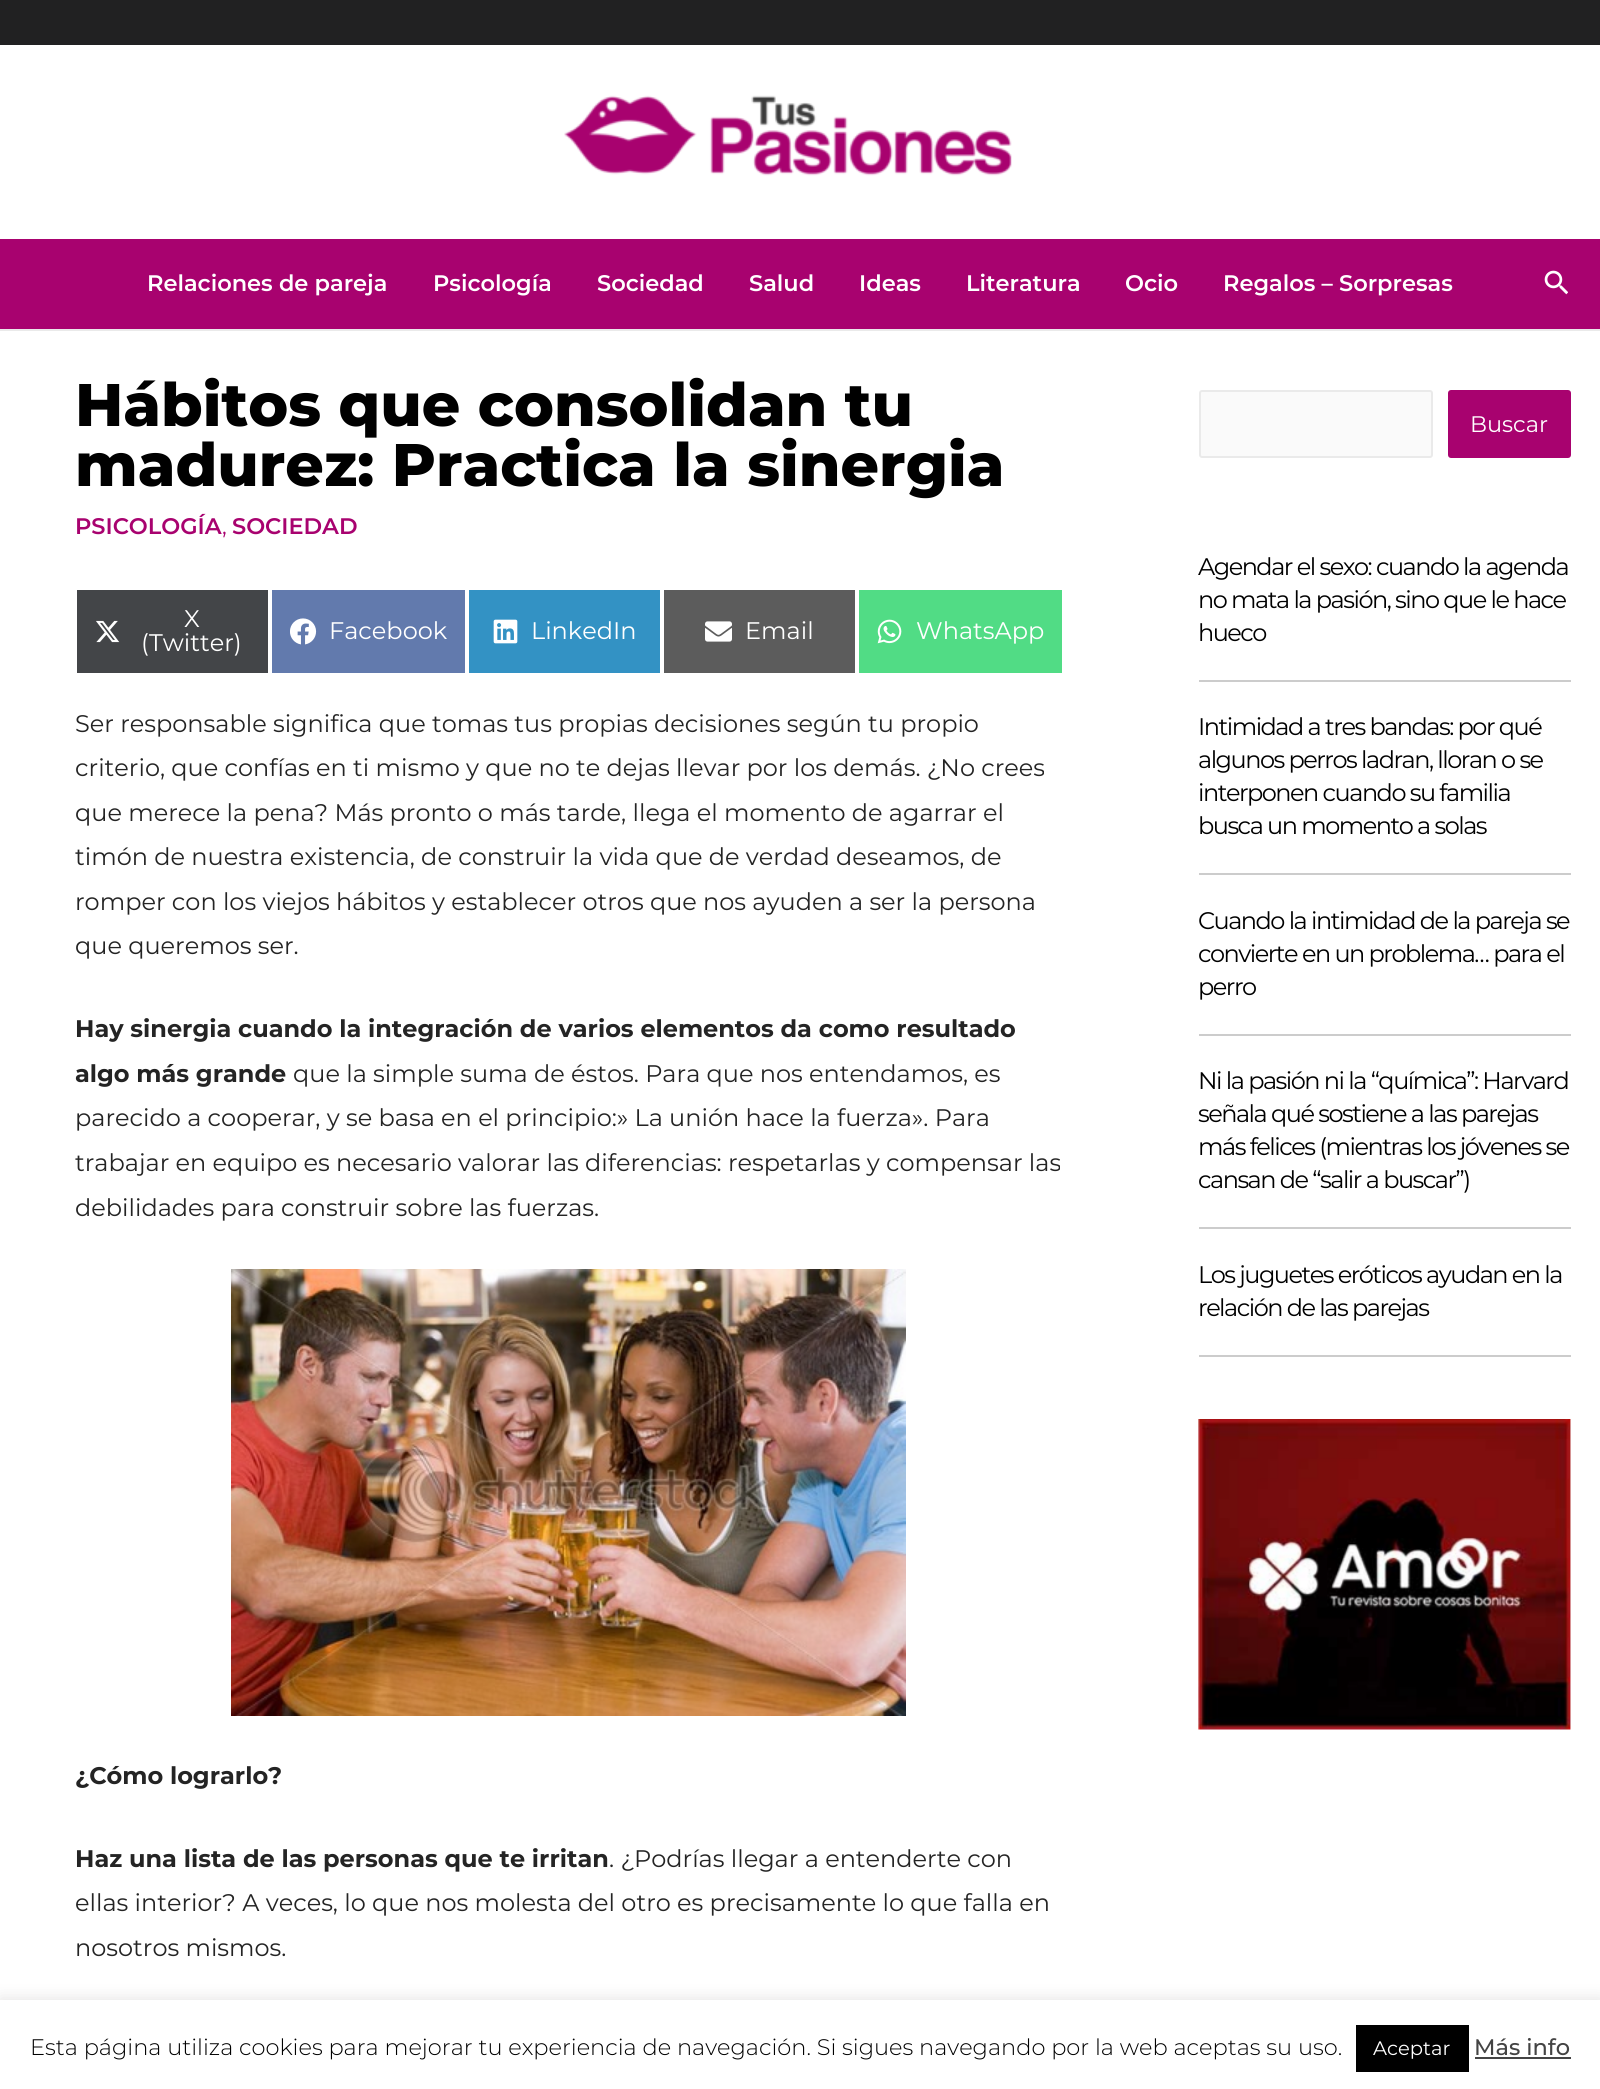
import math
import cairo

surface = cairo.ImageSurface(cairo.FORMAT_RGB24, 1600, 2089)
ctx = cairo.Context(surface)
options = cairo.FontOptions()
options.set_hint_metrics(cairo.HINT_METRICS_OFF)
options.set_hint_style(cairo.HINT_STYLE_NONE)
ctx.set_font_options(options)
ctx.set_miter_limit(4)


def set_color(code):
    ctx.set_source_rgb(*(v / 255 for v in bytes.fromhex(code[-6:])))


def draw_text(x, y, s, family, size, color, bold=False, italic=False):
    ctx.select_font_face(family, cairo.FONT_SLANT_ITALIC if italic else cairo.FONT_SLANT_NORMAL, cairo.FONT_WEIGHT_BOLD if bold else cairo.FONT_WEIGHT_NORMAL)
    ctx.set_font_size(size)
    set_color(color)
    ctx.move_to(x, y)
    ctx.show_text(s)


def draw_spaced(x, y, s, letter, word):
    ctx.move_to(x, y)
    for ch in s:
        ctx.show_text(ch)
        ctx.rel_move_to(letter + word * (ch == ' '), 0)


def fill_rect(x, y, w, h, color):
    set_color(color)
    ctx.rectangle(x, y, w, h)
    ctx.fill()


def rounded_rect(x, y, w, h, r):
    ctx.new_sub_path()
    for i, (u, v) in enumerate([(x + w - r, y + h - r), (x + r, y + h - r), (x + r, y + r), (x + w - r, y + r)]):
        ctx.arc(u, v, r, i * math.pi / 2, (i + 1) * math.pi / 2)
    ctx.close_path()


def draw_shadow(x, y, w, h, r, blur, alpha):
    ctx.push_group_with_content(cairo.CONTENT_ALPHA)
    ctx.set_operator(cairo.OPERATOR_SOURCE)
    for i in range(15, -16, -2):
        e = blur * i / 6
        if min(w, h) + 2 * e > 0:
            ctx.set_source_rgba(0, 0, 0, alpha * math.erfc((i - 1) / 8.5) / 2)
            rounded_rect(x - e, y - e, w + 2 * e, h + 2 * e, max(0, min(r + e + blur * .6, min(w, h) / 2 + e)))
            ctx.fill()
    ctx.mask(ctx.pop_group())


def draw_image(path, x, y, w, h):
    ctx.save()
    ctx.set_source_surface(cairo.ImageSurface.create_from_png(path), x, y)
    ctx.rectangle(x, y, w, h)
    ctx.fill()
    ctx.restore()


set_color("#ffffff")
ctx.paint()
fill_rect(0, 0, 1600, 45, "#212122")
draw_image("assets/img1.png", 564, 95, 448, 81)
fill_rect(0, 239, 1600, 90, "#a8026f")
fill_rect(0, 329, 1600, 2, "#eaeaea")
draw_text(147, 291, "Relaciones de pareja", "Montserrat SemiBold", 22.5, "#ffffff")
draw_text(433, 291, "Psicología", "Montserrat SemiBold", 22.5, "#ffffff")
draw_text(597, 291, "Sociedad", "Montserrat SemiBold", 22.5, "#ffffff")
draw_text(749, 291, "Salud", "Montserrat SemiBold", 22.5, "#ffffff")
draw_text(859, 291, "Ideas", "Montserrat SemiBold", 22.5, "#ffffff")
draw_text(966, 291, "Literatura", "Montserrat SemiBold", 22.5, "#ffffff")
draw_text(1125, 291, "Ocio", "Montserrat SemiBold", 22.5, "#ffffff")
draw_text(1223, 291, "Regalos – Sorpresas", "Montserrat SemiBold", 22.5, "#ffffff")
draw_image("assets/img2.png", 1544, 270, 24, 25)
draw_text(75, 426, "Hábitos que consolidan tu", "Montserrat ExtraBold", 60, "#000000")
draw_text(75, 486, "madurez: Practica la sinergia", "Montserrat ExtraBold", 60, "#000000")
draw_text(75, 534, "PSICOLOGÍA", "Montserrat SemiBold", 22.5, "#a8026f")
draw_text(222, 534, ",", "Montserrat", 22.5, "#a8026f")
draw_text(232, 534, "SOCIEDAD", "Montserrat SemiBold", 22.5, "#a8026f")
fill_rect(77, 590, 191, 83, "#434548")
draw_image("assets/img3.png", 96, 620, 24, 23)
draw_text(184, 627, "X", "Montserrat", 24, "#ffffff")
draw_text(141, 651, "(Twitter)", "Montserrat", 24, "#ffffff")
fill_rect(272, 590, 193, 83, "#627aad")
draw_image("assets/img4.png", 290, 618, 27, 27)
draw_text(329, 639, "Facebook", "Montserrat", 24, "#ffffff")
fill_rect(469, 590, 191, 83, "#3392c4")
draw_image("assets/img5.png", 493, 619, 25, 25)
draw_text(531, 639, "LinkedIn", "Montserrat", 24, "#ffffff")
fill_rect(664, 590, 191, 83, "#5c5c5c")
draw_image("assets/img6.png", 705, 621, 27, 21)
draw_text(745, 639, "Email", "Montserrat", 24, "#ffffff")
fill_rect(859, 590, 203, 83, "#51dc85")
draw_image("assets/img7.png", 877, 619, 25, 25)
draw_text(916, 639, "WhatsApp", "Montserrat", 24, "#ffffff")
draw_text(75, 732, "Ser responsable significa que tomas tus propias decisiones según tu propio", "Montserrat", 24, "#242424")
draw_text(75, 776, "criterio, que confías en ti mismo y que no te dejas llevar por los demás. ¿No crees", "Montserrat", 24, "#242424")
draw_text(75, 821, "que merece la pena? Más pronto o más tarde, llega el momento de agarrar el", "Montserrat", 24, "#242424")
draw_text(75, 865, "timón de nuestra existencia, de construir la vida que de verdad deseamos, de", "Montserrat", 24, "#242424")
draw_text(75, 910, "romper con los viejos hábitos y establecer otros que nos ayuden a ser la persona", "Montserrat", 24, "#242424")
draw_text(75, 954, "que queremos ser.", "Montserrat", 24, "#242424")
draw_text(75, 1037, "Hay sinergia cuando la integración de varios elementos da como resultado", "Montserrat", 24, "#242424", bold=True)
draw_text(75, 1082, "algo más grande", "Montserrat", 24, "#242424", bold=True)
draw_text(293, 1082, "que la simple suma de éstos. Para que nos entendamos, es", "Montserrat", 24, "#242424")
draw_text(75, 1126, "parecido a cooperar, y se basa en el principio:» La unión hace la fuerza». Para", "Montserrat", 24, "#242424")
draw_text(75, 1171, "trabajar en equipo es necesario valorar las diferencias: respetarlas y compensar las", "Montserrat", 24, "#242424")
draw_text(75, 1216, "debilidades para construir sobre las fuerzas.", "Montserrat", 24, "#242424")
draw_image("assets/img8.png", 231, 1269, 675, 447)
draw_text(75, 1784, "¿Cómo lograrlo?", "Montserrat", 24, "#242424", bold=True)
draw_text(75, 1867, "Haz una lista de las personas que te irritan", "Montserrat", 24, "#242424", bold=True)
draw_text(609, 1867, ". ¿Podrías llegar a entenderte con", "Montserrat", 24, "#242424")
draw_text(75, 1911, "ellas interior? A veces, lo que nos molesta del otro es precisamente lo que falla en", "Montserrat", 24, "#242424")
draw_text(75, 1956, "nosotros mismos.", "Montserrat", 24, "#242424")
set_color("#fafafa")
rounded_rect(1200, 391, 232, 66, 2)
ctx.fill_preserve()
set_color("#eaeaea")
ctx.stroke()
set_color("#a8026f")
rounded_rect(1448, 390, 123, 68, 3)
ctx.fill()
draw_text(1470, 432, "Buscar", "Montserrat", 22.5, "#ffffff")
fill_rect(1199, 680, 372, 2, "#cccccc")
ctx.set_font_size(24)
set_color("#000000")
draw_spaced(1198, 575, "Agendar el sexo: cuando la agenda", -1.5, 0)
draw_spaced(1198, 608, "no mata la pasión, sino que le hace", -1.5, 0)
draw_spaced(1198, 641, "hueco", -1.5, 0)
fill_rect(1199, 873, 372, 2, "#cccccc")
set_color("#000000")
draw_spaced(1198, 735, "Intimidad a tres bandas: por qué", -1.5, 0)
draw_spaced(1198, 768, "algunos perros ladran, lloran o se", -1.5, 0)
draw_spaced(1198, 801, "interponen cuando su familia", -1.5, 0)
draw_spaced(1198, 834, "busca un momento a solas", -1.5, 0)
fill_rect(1199, 1034, 372, 2, "#cccccc")
set_color("#000000")
draw_spaced(1198, 929, "Cuando la intimidad de la pareja se", -1.5, 0)
draw_spaced(1198, 962, "convierte en un problema… para el", -1.5, 0)
draw_spaced(1198, 995, "perro", -1.5, 0)
fill_rect(1199, 1227, 372, 2, "#cccccc")
set_color("#000000")
draw_spaced(1198, 1089, "Ni la pasión ni la “química”: Harvard", -1.5, 0)
draw_spaced(1198, 1122, "señala qué sostiene a las parejas", -1.5, 0)
draw_spaced(1198, 1155, "más felices (mientras los jóvenes se", -1.5, 0)
draw_spaced(1198, 1188, "cansan de “salir a buscar”)", -1.5, 0)
fill_rect(1199, 1355, 372, 2, "#cccccc")
set_color("#000000")
draw_spaced(1198, 1283, "Los juguetes eróticos ayudan en la", -1.5, 0)
draw_spaced(1198, 1316, "relación de las parejas", -1.5, 0)
draw_image("assets/img9.png", 1198, 1419, 373, 311)
set_color("#acabab")
draw_shadow(0, 1998, 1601, 90, 0, 7.5, 0.3)
fill_rect(0, 2000, 1600, 89, "#ffffff")
draw_text(30, 2055, "Esta página utiliza cookies para mejorar tu experiencia de navegación. Si sigues navegando por la web aceptas su uso.", "Montserrat Light", 22.5, "#000000")
fill_rect(1356, 2025, 113, 47, "#000000")
draw_text(1373, 2055, "Aceptar", "Montserrat", 19.5, "#ffffff")
draw_text(1474, 2055, "Más info", "Montserrat Medium", 22.5, "#444444")
fill_rect(1475, 2057, 96, 2, "#444444")
surface.write_to_png("output.png")
